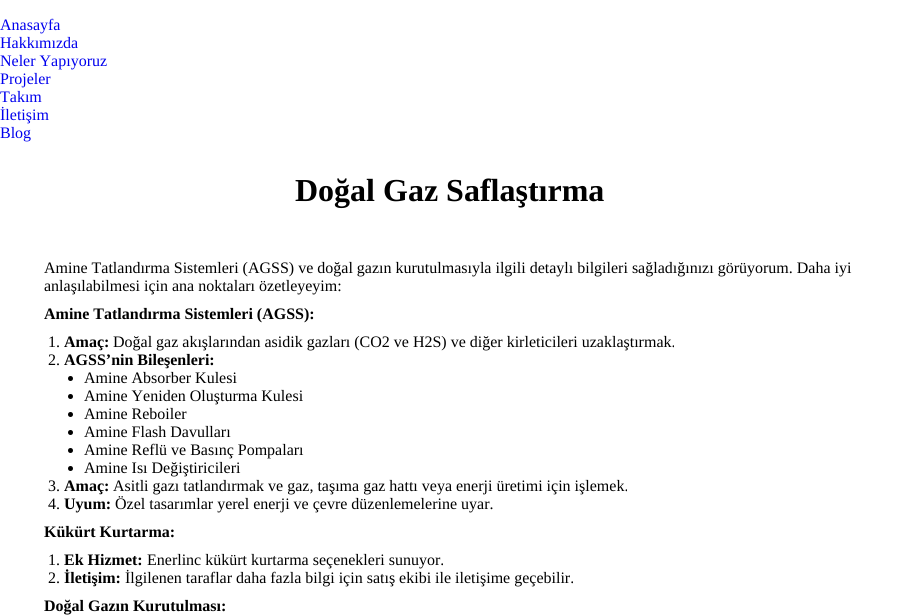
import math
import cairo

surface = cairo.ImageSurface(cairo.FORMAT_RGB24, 899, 615)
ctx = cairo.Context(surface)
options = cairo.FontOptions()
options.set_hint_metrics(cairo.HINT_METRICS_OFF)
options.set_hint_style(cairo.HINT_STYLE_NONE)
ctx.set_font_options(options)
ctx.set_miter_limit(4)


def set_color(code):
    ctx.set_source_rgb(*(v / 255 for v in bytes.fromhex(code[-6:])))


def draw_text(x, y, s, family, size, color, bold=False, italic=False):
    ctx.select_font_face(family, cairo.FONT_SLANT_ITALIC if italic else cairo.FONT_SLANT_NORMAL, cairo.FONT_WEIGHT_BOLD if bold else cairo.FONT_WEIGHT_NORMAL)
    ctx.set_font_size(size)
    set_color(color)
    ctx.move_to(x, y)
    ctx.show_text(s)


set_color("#ffffff")
ctx.paint()
draw_text(0, 30, "Anasayfa", "Liberation Serif", 16, "#0000ee")
draw_text(0, 48, "Hakkımızda", "Liberation Serif", 16, "#0000ee")
draw_text(0, 66, "Neler Yapıyoruz", "Liberation Serif", 16, "#0000ee")
draw_text(0, 84, "Projeler", "Liberation Serif", 16, "#0000ee")
draw_text(0, 102, "Takım", "Liberation Serif", 16, "#0000ee")
draw_text(0, 120, "İletişim", "Liberation Serif", 16, "#0000ee")
draw_text(0, 138, "Blog", "Liberation Serif", 16, "#0000ee")
draw_text(295, 201, "Doğal Gaz Saflaştırma", "Liberation Serif", 32, "#000000", bold=True)
draw_text(44, 273, "Amine Tatlandırma Sistemleri (AGSS) ve doğal gazın kurutulmasıyla ilgili detaylı bilgileri sağladığınızı görüyorum. Daha iyi", "Liberation Serif", 16, "#000000")
draw_text(44, 291, "anlaşılabilmesi için ana noktaları özetleyeyim:", "Liberation Serif", 16, "#000000")
draw_text(44, 319, "Amine Tatlandırma Sistemleri (AGSS):", "Liberation Serif", 16, "#000000", bold=True)
draw_text(48, 347, "1.", "Liberation Serif", 16, "#000000")
draw_text(64, 347, "Amaç:", "Liberation Serif", 16, "#000000", bold=True)
draw_text(113, 347, "Doğal gaz akışlarından asidik gazları (CO2 ve H2S) ve diğer kirleticileri uzaklaştırmak.", "Liberation Serif", 16, "#000000")
draw_text(48, 365, "2.", "Liberation Serif", 16, "#000000")
draw_text(64, 365, "AGSS’nin Bileşenleri:", "Liberation Serif", 16, "#000000", bold=True)
ctx.new_path()
ctx.arc(70.5, 378.5, 2.5, 0, 2 * math.pi)
ctx.fill()
draw_text(84, 383, "Amine Absorber Kulesi", "Liberation Serif", 16, "#000000")
ctx.new_path()
ctx.arc(70.5, 396.5, 2.5, 0, 2 * math.pi)
ctx.fill()
draw_text(84, 401, "Amine Yeniden Oluşturma Kulesi", "Liberation Serif", 16, "#000000")
ctx.new_path()
ctx.arc(70.5, 414.5, 2.5, 0, 2 * math.pi)
ctx.fill()
draw_text(84, 419, "Amine Reboiler", "Liberation Serif", 16, "#000000")
ctx.new_path()
ctx.arc(70.5, 432.5, 2.5, 0, 2 * math.pi)
ctx.fill()
draw_text(84, 437, "Amine Flash Davulları", "Liberation Serif", 16, "#000000")
ctx.new_path()
ctx.arc(70.5, 450.5, 2.5, 0, 2 * math.pi)
ctx.fill()
draw_text(84, 455, "Amine Reflü ve Basınç Pompaları", "Liberation Serif", 16, "#000000")
ctx.new_path()
ctx.arc(70.5, 468.5, 2.5, 0, 2 * math.pi)
ctx.fill()
draw_text(84, 473, "Amine Isı Değiştiricileri", "Liberation Serif", 16, "#000000")
draw_text(48, 491, "3.", "Liberation Serif", 16, "#000000")
draw_text(64, 491, "Amaç:", "Liberation Serif", 16, "#000000", bold=True)
draw_text(113, 491, "Asitli gazı tatlandırmak ve gaz, taşıma gaz hattı veya enerji üretimi için işlemek.", "Liberation Serif", 16, "#000000")
draw_text(48, 509, "4.", "Liberation Serif", 16, "#000000")
draw_text(64, 509, "Uyum:", "Liberation Serif", 16, "#000000", bold=True)
draw_text(115, 509, "Özel tasarımlar yerel enerji ve çevre düzenlemelerine uyar.", "Liberation Serif", 16, "#000000")
draw_text(44, 537, "Kükürt Kurtarma:", "Liberation Serif", 16, "#000000", bold=True)
draw_text(48, 565, "1.", "Liberation Serif", 16, "#000000")
draw_text(64, 565, "Ek Hizmet:", "Liberation Serif", 16, "#000000", bold=True)
draw_text(147, 565, "Enerlinc kükürt kurtarma seçenekleri sunuyor.", "Liberation Serif", 16, "#000000")
draw_text(48, 583, "2.", "Liberation Serif", 16, "#000000")
draw_text(64, 583, "İletişim:", "Liberation Serif", 16, "#000000", bold=True)
draw_text(125, 583, "İlgilenen taraflar daha fazla bilgi için satış ekibi ile iletişime geçebilir.", "Liberation Serif", 16, "#000000")
draw_text(44, 611, "Doğal Gazın Kurutulması:", "Liberation Serif", 16, "#000000", bold=True)
surface.write_to_png("output.png")
